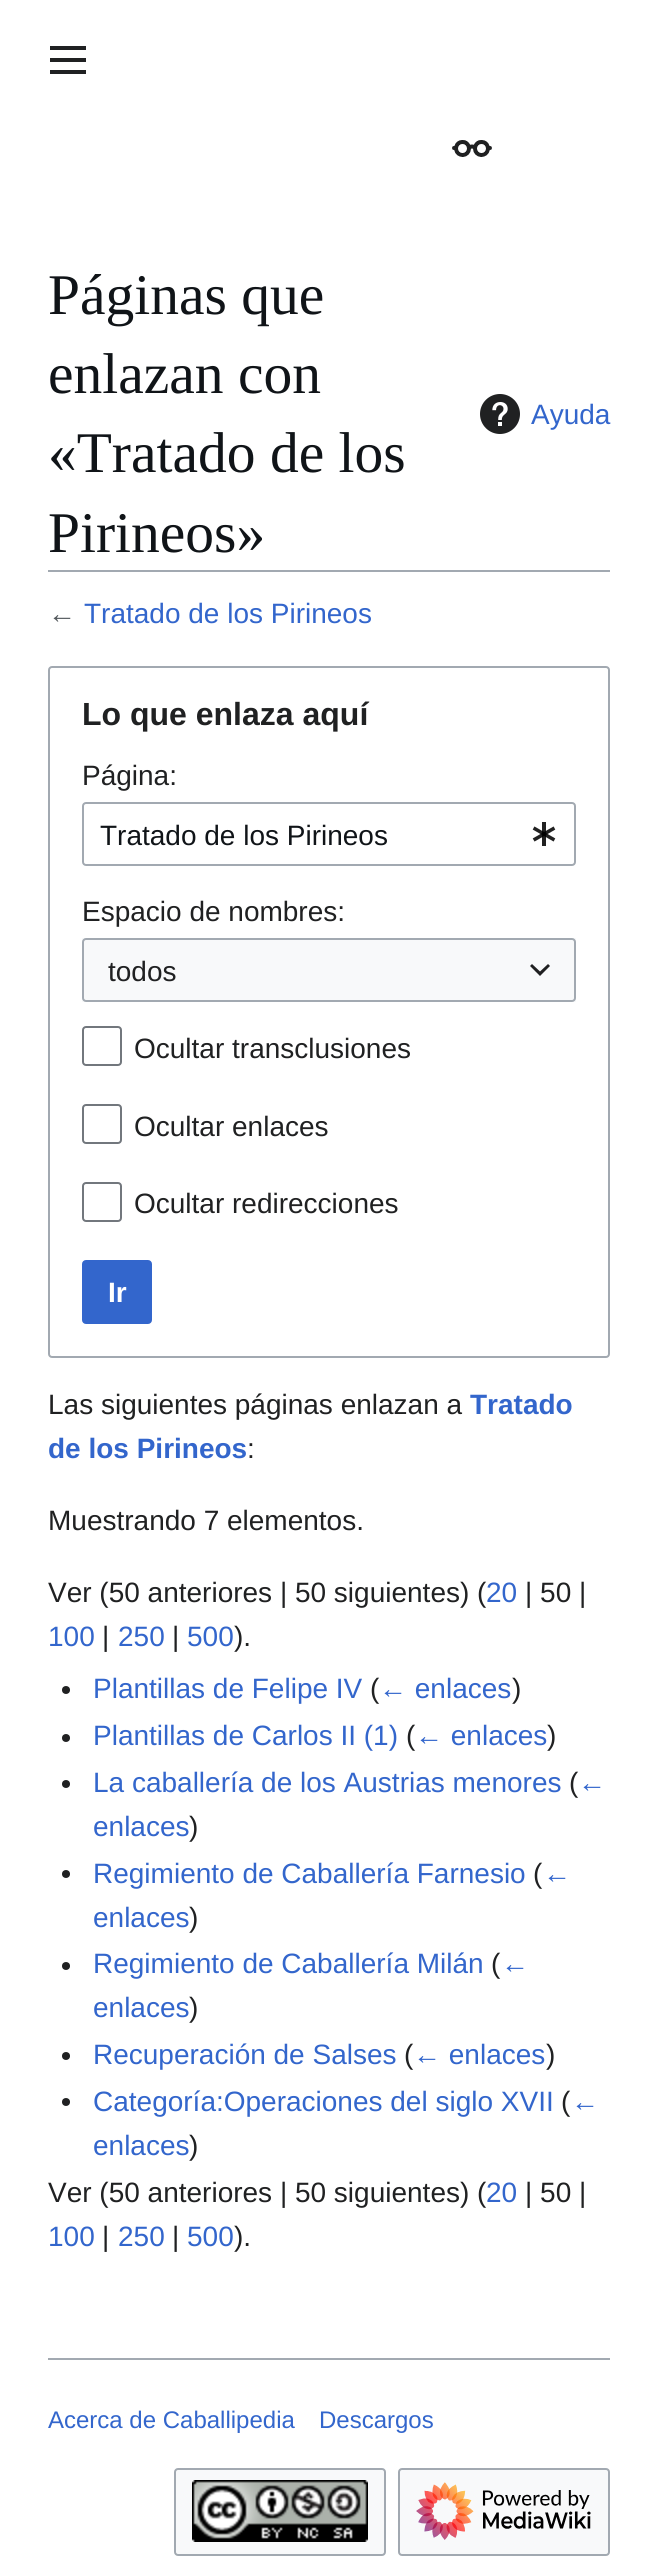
import math
import cairo

surface = cairo.ImageSurface(cairo.FORMAT_RGB24, 657, 2568)
ctx = cairo.Context(surface)
options = cairo.FontOptions()
options.set_hint_metrics(cairo.HINT_METRICS_OFF)
options.set_hint_style(cairo.HINT_STYLE_NONE)
ctx.set_font_options(options)
ctx.set_miter_limit(4)


def set_color(code):
    ctx.set_source_rgb(*(v / 255 for v in bytes.fromhex(code[-6:])))


def draw_text(x, y, s, family, size, color, bold=False, italic=False):
    ctx.select_font_face(family, cairo.FONT_SLANT_ITALIC if italic else cairo.FONT_SLANT_NORMAL, cairo.FONT_WEIGHT_BOLD if bold else cairo.FONT_WEIGHT_NORMAL)
    ctx.set_font_size(size)
    set_color(color)
    ctx.move_to(x, y)
    ctx.show_text(s)


def fill_rect(x, y, w, h, color):
    set_color(color)
    ctx.rectangle(x, y, w, h)
    ctx.fill()


def rounded_rect(x, y, w, h, r):
    ctx.new_sub_path()
    for i, (u, v) in enumerate([(x + w - r, y + h - r), (x + r, y + h - r), (x + r, y + r), (x + w - r, y + r)]):
        ctx.arc(u, v, r, i * math.pi / 2, (i + 1) * math.pi / 2)
    ctx.close_path()


def draw_image(path, x, y, w, h):
    ctx.save()
    ctx.set_source_surface(cairo.ImageSurface.create_from_png(path), x, y)
    ctx.rectangle(x, y, w, h)
    ctx.fill()
    ctx.restore()


set_color("#ffffff")
ctx.paint()
draw_image("assets/img1.png", 50, 46, 36, 28)
draw_image("assets/img2.png", 452, 140, 40, 17)
draw_text(48, 314, "Páginas que", "Liberation Serif", 57.5, "#101418")
draw_text(48, 393, "enlazan con", "Liberation Serif", 57.5, "#101418")
draw_text(48, 472, "«Tratado de los", "Liberation Serif", 57.5, "#101418")
draw_text(48, 552, "Pirineos»", "Liberation Serif", 57.5, "#101418")
draw_image("assets/img3.png", 480, 394, 40, 40)
draw_text(531, 424, "Ayuda", "Liberation Sans", 28, "#3366cc")
fill_rect(48, 570, 562, 2, "#a2a9b1")
draw_text(48, 623, "←", "Liberation Sans", 28, "#54595d")
draw_text(84, 623, "Tratado de los Pirineos", "Liberation Sans", 28, "#3366cc")
rounded_rect(49, 667, 560, 690, 3)
set_color("#a2a9b1")
ctx.stroke()
draw_text(82, 725, "Lo que enlaza aquí", "Liberation Sans", 32, "#202122", bold=True)
draw_text(82, 785, "Página:", "Liberation Sans", 28, "#202122")
rounded_rect(83, 803, 492, 62, 3)
set_color("#a2a9b1")
ctx.stroke()
draw_text(100, 845, "Tratado de los Pirineos", "Liberation Sans", 28, "#101418")
draw_image("assets/img4.png", 532, 822, 24, 24)
draw_text(82, 921, "Espacio de nombres:", "Liberation Sans", 28, "#202122")
fill_rect(82, 938, 494, 64, "#f8f9fa")
rounded_rect(83, 939, 492, 62, 3)
set_color("#a2a9b1")
ctx.stroke()
draw_text(108, 981, "todos", "Liberation Sans", 28, "#202122")
set_color("#202021")
ctx.new_path()
ctx.move_to(548, 964)
ctx.line_to(540, 971.5)
ctx.line_to(532, 964)
ctx.line_to(530, 966)
ctx.line_to(540, 976)
ctx.line_to(550, 966)
ctx.close_path()
ctx.fill()
rounded_rect(83, 1027, 38, 38, 3)
set_color("#72777d")
ctx.stroke()
draw_text(134, 1058, "Ocultar transclusiones", "Liberation Sans", 28, "#202122")
rounded_rect(83, 1105, 38, 38, 3)
set_color("#72777d")
ctx.stroke()
draw_text(134, 1136, "Ocultar enlaces", "Liberation Sans", 28, "#202122")
rounded_rect(83, 1183, 38, 38, 3)
set_color("#72777d")
ctx.stroke()
draw_text(134, 1213, "Ocultar redirecciones", "Liberation Sans", 28, "#202122")
set_color("#3366cc")
rounded_rect(83, 1261, 68, 62, 3)
ctx.fill_preserve()
ctx.stroke()
draw_text(108, 1302, "Ir", "Liberation Sans", 28, "#ffffff", bold=True)
draw_text(48, 1414, "Las siguientes páginas enlazan a", "Liberation Sans", 28, "#202122")
draw_text(470, 1414, "Tratado", "Liberation Sans", 28, "#3366cc", bold=True)
draw_text(48, 1458, "de los Pirineos", "Liberation Sans", 28, "#3366cc", bold=True)
draw_text(247, 1458, ":", "Liberation Sans", 28, "#202122")
draw_text(48, 1530, "Muestrando 7 elementos.", "Liberation Sans", 28, "#202122")
draw_text(48, 1602, "Ver (50 anteriores | 50 siguientes) (", "Liberation Sans", 28, "#202122")
draw_text(486, 1602, "20", "Liberation Sans", 28, "#3366cc")
draw_text(525, 1602, "| 50 |", "Liberation Sans", 28, "#202122")
draw_text(48, 1646, "100", "Liberation Sans", 28, "#3366cc")
draw_text(102, 1646, "|", "Liberation Sans", 28, "#202122")
draw_text(118, 1646, "250", "Liberation Sans", 28, "#3366cc")
draw_text(172, 1646, "|", "Liberation Sans", 28, "#202122")
draw_text(187, 1646, "500", "Liberation Sans", 28, "#3366cc")
draw_text(234, 1646, ").", "Liberation Sans", 28, "#202122")
ctx.new_path()
ctx.arc(66, 1690, 4, 0, 2 * math.pi)
ctx.fill()
draw_text(93, 1698, "Plantillas de Felipe IV", "Liberation Sans", 28, "#3366cc")
draw_text(370, 1698, "(", "Liberation Sans", 28, "#202122")
draw_text(379, 1698, "← enlaces", "Liberation Sans", 28, "#3366cc")
draw_text(512, 1698, ")", "Liberation Sans", 28, "#202122")
ctx.new_path()
ctx.arc(66, 1738, 4, 0, 2 * math.pi)
ctx.fill()
draw_text(93, 1745, "Plantillas de Carlos II (1)", "Liberation Sans", 28, "#3366cc")
draw_text(406, 1745, "(", "Liberation Sans", 28, "#202122")
draw_text(415, 1745, "← enlaces", "Liberation Sans", 28, "#3366cc")
draw_text(547, 1745, ")", "Liberation Sans", 28, "#202122")
ctx.new_path()
ctx.arc(66, 1784, 4, 0, 2 * math.pi)
ctx.fill()
draw_text(93, 1792, "La caballería de los Austrias menores", "Liberation Sans", 28, "#3366cc")
draw_text(569, 1792, "(", "Liberation Sans", 28, "#202122")
draw_text(578, 1792, "←", "Liberation Sans", 28, "#3366cc")
draw_text(93, 1836, "enlaces", "Liberation Sans", 28, "#3366cc")
draw_text(189, 1836, ")", "Liberation Sans", 28, "#202122")
ctx.new_path()
ctx.arc(66, 1874, 4, 0, 2 * math.pi)
ctx.fill()
draw_text(93, 1883, "Regimiento de Caballería Farnesio", "Liberation Sans", 28, "#3366cc")
draw_text(533, 1883, "(", "Liberation Sans", 28, "#202122")
draw_text(543, 1883, "←", "Liberation Sans", 28, "#3366cc")
draw_text(93, 1927, "enlaces", "Liberation Sans", 28, "#3366cc")
draw_text(189, 1927, ")", "Liberation Sans", 28, "#202122")
ctx.new_path()
ctx.arc(66, 1966, 4, 0, 2 * math.pi)
ctx.fill()
draw_text(93, 1973, "Regimiento de Caballería Milán", "Liberation Sans", 28, "#3366cc")
draw_text(491, 1973, "(", "Liberation Sans", 28, "#202122")
draw_text(501, 1973, "←", "Liberation Sans", 28, "#3366cc")
draw_text(93, 2017, "enlaces", "Liberation Sans", 28, "#3366cc")
draw_text(189, 2017, ")", "Liberation Sans", 28, "#202122")
ctx.new_path()
ctx.arc(66, 2056, 4, 0, 2 * math.pi)
ctx.fill()
draw_text(93, 2064, "Recuperación de Salses", "Liberation Sans", 28, "#3366cc")
draw_text(404, 2064, "(", "Liberation Sans", 28, "#202122")
draw_text(413, 2064, "← enlaces", "Liberation Sans", 28, "#3366cc")
draw_text(546, 2064, ")", "Liberation Sans", 28, "#202122")
ctx.new_path()
ctx.arc(66, 2102, 4, 0, 2 * math.pi)
ctx.fill()
draw_text(93, 2111, "Categoría:Operaciones del siglo XVII", "Liberation Sans", 28, "#3366cc")
draw_text(561, 2111, "(", "Liberation Sans", 28, "#202122")
draw_text(571, 2111, "←", "Liberation Sans", 28, "#3366cc")
draw_text(93, 2155, "enlaces", "Liberation Sans", 28, "#3366cc")
draw_text(189, 2155, ")", "Liberation Sans", 28, "#202122")
draw_text(48, 2202, "Ver (50 anteriores | 50 siguientes) (", "Liberation Sans", 28, "#202122")
draw_text(486, 2202, "20", "Liberation Sans", 28, "#3366cc")
draw_text(525, 2202, "| 50 |", "Liberation Sans", 28, "#202122")
draw_text(48, 2246, "100", "Liberation Sans", 28, "#3366cc")
draw_text(102, 2246, "|", "Liberation Sans", 28, "#202122")
draw_text(118, 2246, "250", "Liberation Sans", 28, "#3366cc")
draw_text(172, 2246, "|", "Liberation Sans", 28, "#202122")
draw_text(187, 2246, "500", "Liberation Sans", 28, "#3366cc")
draw_text(234, 2246, ").", "Liberation Sans", 28, "#202122")
fill_rect(48, 2358, 562, 2, "#a2a9b1")
draw_text(48, 2428, "Acerca de Caballipedia", "Liberation Sans", 24, "#3366cc")
draw_text(319, 2428, "Descargos", "Liberation Sans", 24, "#3366cc")
set_color("#f8f9fa")
rounded_rect(175, 2469, 210, 86, 3)
ctx.fill_preserve()
set_color("#a2a9b1")
ctx.stroke()
draw_image("assets/img5.png", 192, 2480, 176, 62)
set_color("#f8f9fa")
rounded_rect(399, 2469, 210, 86, 3)
ctx.fill_preserve()
set_color("#a2a9b1")
ctx.stroke()
draw_image("assets/img6.png", 416, 2482, 175, 58)
surface.write_to_png("output.png")
